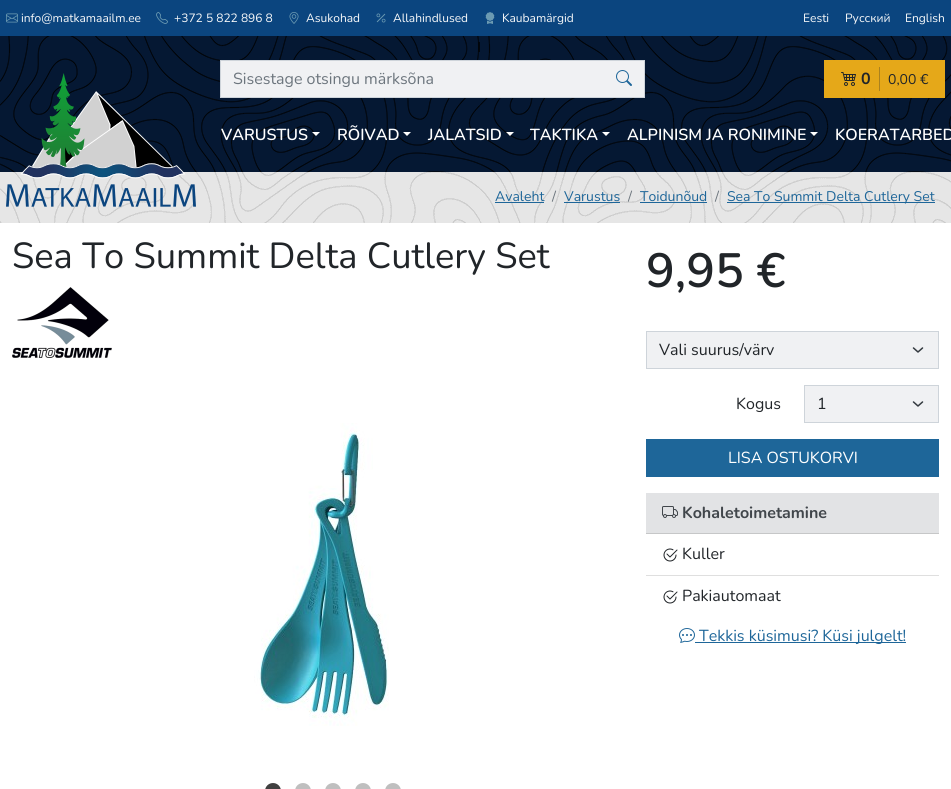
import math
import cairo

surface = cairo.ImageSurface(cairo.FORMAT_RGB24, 951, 789)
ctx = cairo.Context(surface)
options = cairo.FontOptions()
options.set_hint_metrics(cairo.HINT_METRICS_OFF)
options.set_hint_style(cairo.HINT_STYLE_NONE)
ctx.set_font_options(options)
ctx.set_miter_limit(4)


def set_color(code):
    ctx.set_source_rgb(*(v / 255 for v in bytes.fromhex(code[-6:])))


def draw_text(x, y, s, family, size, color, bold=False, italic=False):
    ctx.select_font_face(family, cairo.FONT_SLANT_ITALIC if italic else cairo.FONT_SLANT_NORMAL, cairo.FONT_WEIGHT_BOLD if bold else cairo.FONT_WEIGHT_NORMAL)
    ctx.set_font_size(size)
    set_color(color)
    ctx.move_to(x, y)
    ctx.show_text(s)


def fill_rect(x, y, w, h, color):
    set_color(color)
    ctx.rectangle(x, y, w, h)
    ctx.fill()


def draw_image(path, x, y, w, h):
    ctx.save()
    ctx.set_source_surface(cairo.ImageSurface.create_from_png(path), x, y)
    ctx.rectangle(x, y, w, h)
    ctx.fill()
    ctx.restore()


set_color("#ffffff")
ctx.paint()
draw_image("assets/img1.png", 0, 172, 951, 51)
fill_rect(0, 36, 951, 136, "#051833")
draw_image("assets/img2.png", 0, 36, 951, 136)
fill_rect(0, 0, 951, 36, "#0b457f")
draw_image("assets/img3.png", 6, 13, 12, 10)
draw_text(21, 22, "info@matkamaailm.ee", "Nunito", 12, "#f8f9fa")
draw_image("assets/img4.png", 156, 12, 12, 12)
draw_text(174, 22, "+372 5 822 896 8", "Nunito", 12, "#f8f9fa")
draw_image("assets/img5.png", 289, 12, 10, 12)
draw_text(306, 22, "Asukohad", "Nunito", 12, "#f8f9fa")
draw_image("assets/img6.png", 376, 13, 10, 10)
draw_text(393, 22, "Allahindlused", "Nunito", 12, "#f8f9fa")
draw_image("assets/img7.png", 485, 12, 10, 12)
draw_text(502, 22, "Kaubamärgid", "Nunito", 12, "#f8f9fa")
draw_text(803, 22, "Eesti", "Nunito", 12, "#f8f9fa")
draw_text(845, 22, "Русский", "Nunito", 12, "#f8f9fa")
draw_text(905, 22, "English", "Nunito", 12, "#f8f9fa")
draw_image("assets/img8.png", 6, 73, 190, 134)
set_color("#f0f1f3")
ctx.rectangle(220.5, 60.5, 424, 37)
ctx.fill_preserve()
set_color("#ced4da")
ctx.set_line_width(1)
ctx.stroke()
draw_text(233, 84, "Sisestage otsingu märksõna", "Nunito", 16, "#6c757d")
draw_image("assets/img9.png", 616, 70, 16, 16)
fill_rect(824, 60, 121, 38, "#e5a819")
fill_rect(879, 67, 1, 24, "#aa811e")
draw_image("assets/img10.png", 841, 72, 15, 14)
draw_text(861, 84, "0", "Nunito", 16, "#212529", bold=True)
draw_text(888, 84, "0,00 €", "Nunito", 14, "#212529")
draw_text(221, 140, "VARUSTUS", "Nunito SemiBold", 16, "#ffffff")
ctx.new_path()
ctx.move_to(312, 132)
ctx.line_to(320, 132)
ctx.line_to(316, 136)
ctx.close_path()
ctx.fill()
draw_text(337, 140, "RÕIVAD", "Nunito SemiBold", 16, "#ffffff")
ctx.new_path()
ctx.move_to(403, 132)
ctx.line_to(411, 132)
ctx.line_to(407, 136)
ctx.close_path()
ctx.fill()
draw_text(428, 140, "JALATSID", "Nunito SemiBold", 16, "#ffffff")
ctx.new_path()
ctx.move_to(506, 132)
ctx.line_to(514, 132)
ctx.line_to(510, 136)
ctx.close_path()
ctx.fill()
draw_text(530, 140, "TAKTIKA", "Nunito SemiBold", 16, "#ffffff")
ctx.new_path()
ctx.move_to(602, 132)
ctx.line_to(610, 132)
ctx.line_to(606, 136)
ctx.close_path()
ctx.fill()
draw_text(627, 140, "ALPINISM JA RONIMINE", "Nunito SemiBold", 16, "#ffffff")
ctx.new_path()
ctx.move_to(810, 132)
ctx.line_to(818, 132)
ctx.line_to(814, 136)
ctx.close_path()
ctx.fill()
draw_text(835, 140, "KOERATARBED", "Nunito SemiBold", 16, "#ffffff")
draw_text(495, 201, "Avaleht", "Nunito", 14, "#1e6699")
fill_rect(495, 202, 49, 1, "#1e6699")
draw_text(552, 201, "/", "Nunito", 14, "#6c757d")
draw_text(564, 201, "Varustus", "Nunito", 14, "#1e6699")
fill_rect(564, 202, 56, 1, "#1e6699")
draw_text(628, 201, "/", "Nunito", 14, "#6c757d")
draw_text(640, 201, "Toidunõud", "Nunito", 14, "#1e6699")
fill_rect(640, 202, 67, 1, "#1e6699")
draw_text(715, 201, "/", "Nunito", 14, "#6c757d")
fill_rect(727, 202, 208, 1, "#1e6699")
draw_text(727, 201, "Sea To Summit Delta Cutlery Set", "Nunito", 14, "#1e6699")
draw_text(12, 268, "Sea To Summit Delta Cutlery Set", "Nunito", 36.25, "#212529")
draw_image("assets/img11.png", 12, 287, 100, 71)
draw_image("assets/img12.png", 254, 423, 135, 303)
draw_image("assets/img13.png", 265, 783, 16, 6)
draw_image("assets/img14.png", 295, 783, 16, 6)
draw_image("assets/img14.png", 325, 783, 16, 6)
draw_image("assets/img14.png", 355, 783, 16, 6)
draw_image("assets/img14.png", 385, 783, 16, 6)
draw_text(646, 287, "9,95 €", "Nunito SemiBold", 48, "#212529")
fill_rect(647, 332, 291, 36, "#f0f1f3")
ctx.new_path()
ctx.move_to(913.5, 348)
ctx.line_to(918, 352)
ctx.line_to(922.5, 348)
set_color("#343a40")
ctx.set_line_width(1.5)
ctx.set_line_cap(cairo.LINE_CAP_ROUND)
ctx.set_line_join(cairo.LINE_JOIN_ROUND)
ctx.stroke()
ctx.rectangle(646.5, 331.5, 292, 37)
set_color("#ced4da")
ctx.set_line_width(1)
ctx.set_line_cap(cairo.LINE_CAP_BUTT)
ctx.set_line_join(cairo.LINE_JOIN_MITER)
ctx.stroke()
draw_text(659, 355, "Vali suurus/värv", "Nunito", 16, "#212529")
draw_text(736, 409, "Kogus", "Nunito", 16, "#212529")
fill_rect(805, 386, 133, 36, "#f0f1f3")
ctx.new_path()
ctx.move_to(913.5, 402)
ctx.line_to(918, 406)
ctx.line_to(922.5, 402)
set_color("#343a40")
ctx.set_line_width(1.5)
ctx.set_line_cap(cairo.LINE_CAP_ROUND)
ctx.set_line_join(cairo.LINE_JOIN_ROUND)
ctx.stroke()
ctx.rectangle(804.5, 385.5, 134, 37)
set_color("#ced4da")
ctx.set_line_width(1)
ctx.set_line_cap(cairo.LINE_CAP_BUTT)
ctx.set_line_join(cairo.LINE_JOIN_MITER)
ctx.stroke()
draw_text(817, 409, "1", "Nunito", 16, "#212529")
fill_rect(646, 439, 293, 38, "#1e6699")
draw_text(728, 463, "LISA OSTUKORVI", "Nunito", 16, "#ffffff")
fill_rect(646, 493, 293, 40, "#e2e3e5")
fill_rect(646, 533, 293, 1, "#c6c7c8")
draw_image("assets/img15.png", 662, 506, 16, 12)
draw_text(682, 518, "Kohaletoimetamine", "Nunito", 16, "#41464b", bold=True)
fill_rect(646, 575, 293, 1, "#dfdfdf")
draw_image("assets/img16.png", 663, 548, 15, 14)
draw_text(682, 559, "Kuller", "Nunito", 16, "#212529")
draw_image("assets/img16.png", 663, 590, 15, 14)
draw_text(682, 601, "Pakiautomaat", "Nunito", 16, "#212529")
draw_image("assets/img17.png", 679, 628, 16, 15)
fill_rect(695, 642, 211, 1, "#1e6699")
draw_text(699, 641, "Tekkis küsimusi? Küsi julgelt!", "Nunito", 16, "#1e6699")
surface.write_to_png("output.png")
